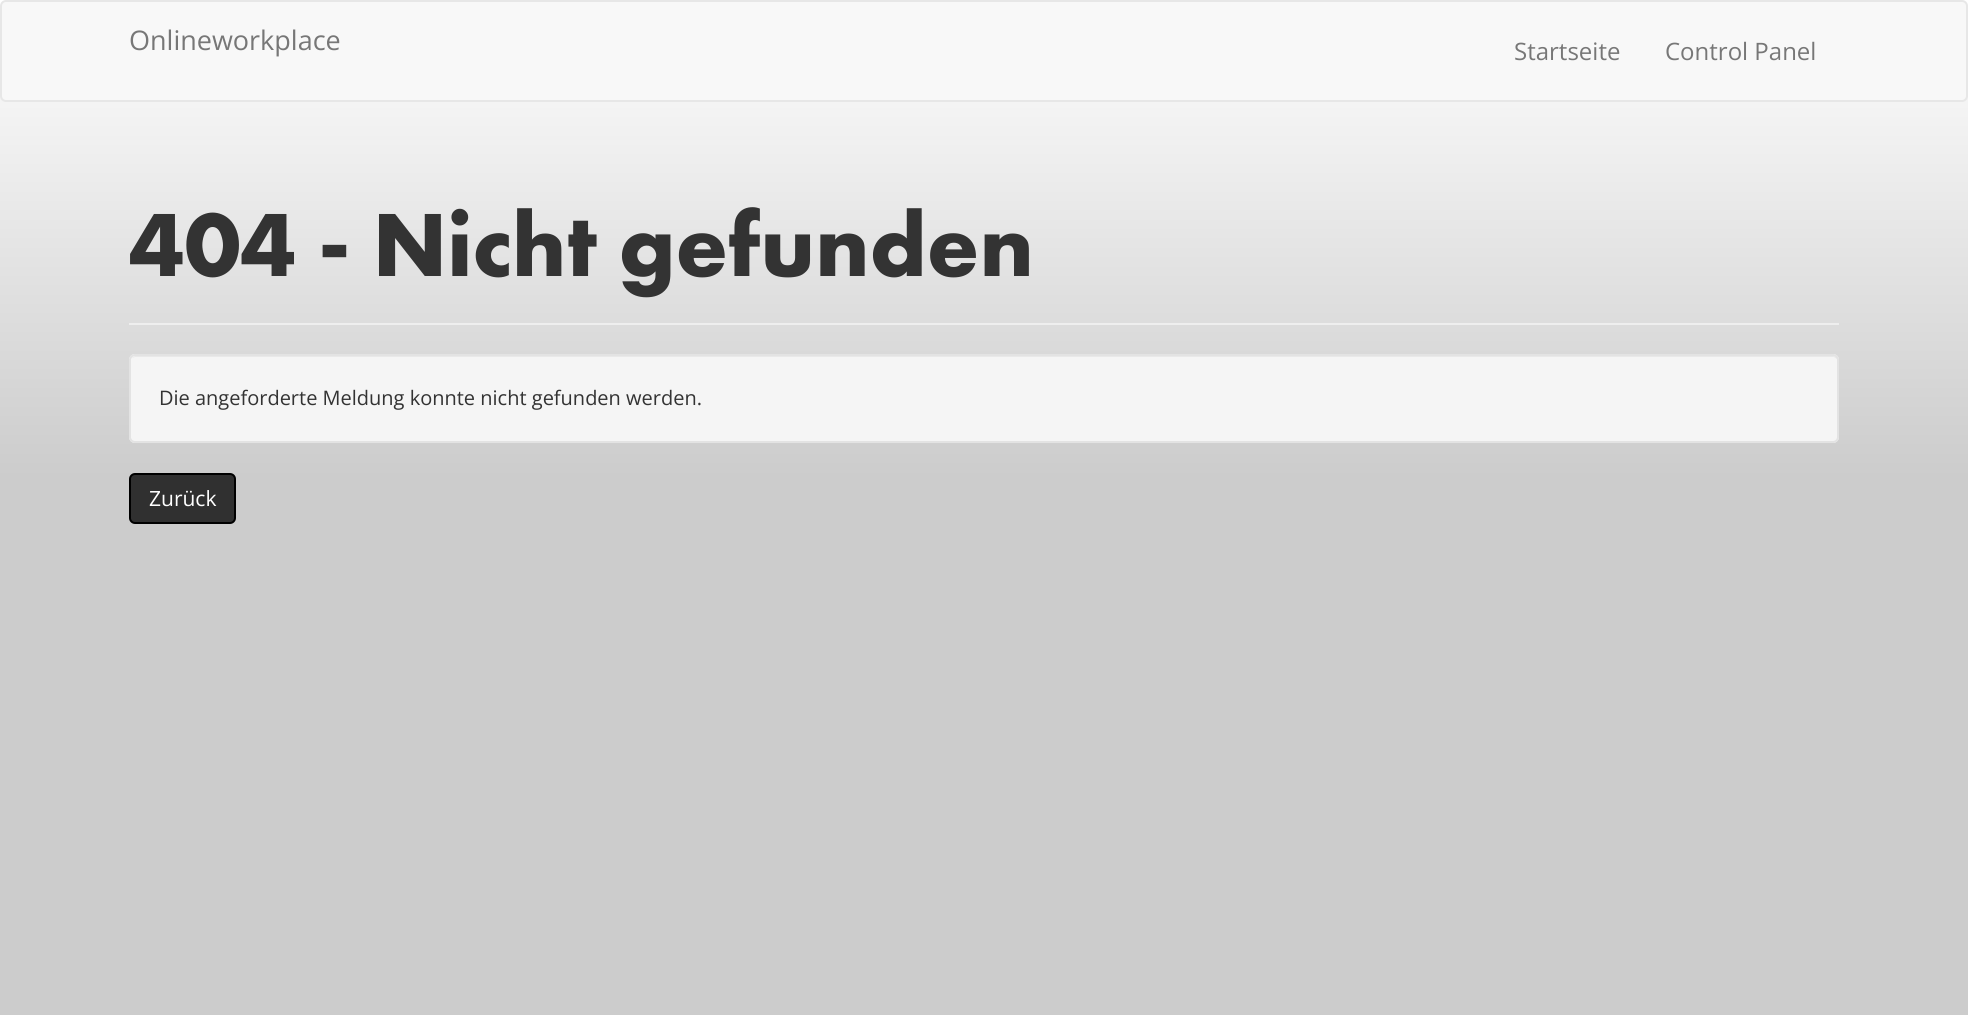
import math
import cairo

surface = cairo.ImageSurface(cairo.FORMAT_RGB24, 1968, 1015)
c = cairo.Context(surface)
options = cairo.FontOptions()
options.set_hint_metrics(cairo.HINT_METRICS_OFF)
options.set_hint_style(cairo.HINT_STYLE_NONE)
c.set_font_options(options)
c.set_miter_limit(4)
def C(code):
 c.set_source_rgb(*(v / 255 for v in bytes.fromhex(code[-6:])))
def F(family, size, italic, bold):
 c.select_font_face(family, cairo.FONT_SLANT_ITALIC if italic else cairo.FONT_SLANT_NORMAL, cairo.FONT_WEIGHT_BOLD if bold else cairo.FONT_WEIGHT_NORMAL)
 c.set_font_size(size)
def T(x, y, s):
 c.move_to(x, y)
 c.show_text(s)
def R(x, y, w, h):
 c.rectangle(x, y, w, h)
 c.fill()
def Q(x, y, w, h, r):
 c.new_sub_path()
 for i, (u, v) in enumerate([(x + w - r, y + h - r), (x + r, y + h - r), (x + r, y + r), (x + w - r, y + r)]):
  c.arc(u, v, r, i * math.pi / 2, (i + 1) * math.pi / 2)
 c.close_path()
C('ffffff')
c.paint()
gradient = cairo.LinearGradient(984,0,984,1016)
gradient.add_color_stop_rgba(0,1,1,1,1)
gradient.add_color_stop_rgba(.46,0.804,0.804,0.804,1)
gradient.add_color_stop_rgba(.47,0.8,0.8,0.8,1)
gradient.add_color_stop_rgba(.95,0.8,0.8,0.8,1)
c.set_source(gradient)
R(0,23,1968,992)
C('f8f8f8')
Q(1,1,1966,100,5)
c.fill_preserve()
C('e7e7e7')
c.stroke()
F('Open Sans',27,0,0)
C('777777')
T(129,50,'Onlineworkplace')
F('Open Sans',24,0,0)
T(1514,60,'Startseite')
T(1665,60,'Control Panel')
C('eeeeee')
R(129,323,1710,2)
F('Futura PT',93,0,1)
C('333333')
T(129,276,'404 - Nicht gefunden')
C('f5f5f5')
Q(129,354,1710,89,6)
c.fill()
C('e9e9e9')
c.new_path()
c.move_to(135,357)
c.line_to(1833,357)
c.curve_to(1835,357,1838,359,1838,362)
c.line_to(1838,361)
c.curve_to(1838,358,1836,356,1833,356)
c.line_to(136,356)
c.curve_to(134,356,133,357,132,358)
c.close_path()
c.fill()
Q(130,355,1708,87,5)
C('e3e3e3')
c.stroke()
F('Open Sans',20,0,0)
C('333333')
T(159,405,'Die angeforderte Meldung konnte nicht gefunden werden.')
C('303030')
Q(130,474,105,49,5)
c.fill_preserve()
C('000000')
c.stroke()
F('Open Sans',21,0,0)
C('ffffff')
T(149,506,'Zurück')
surface.write_to_png('o.png')
